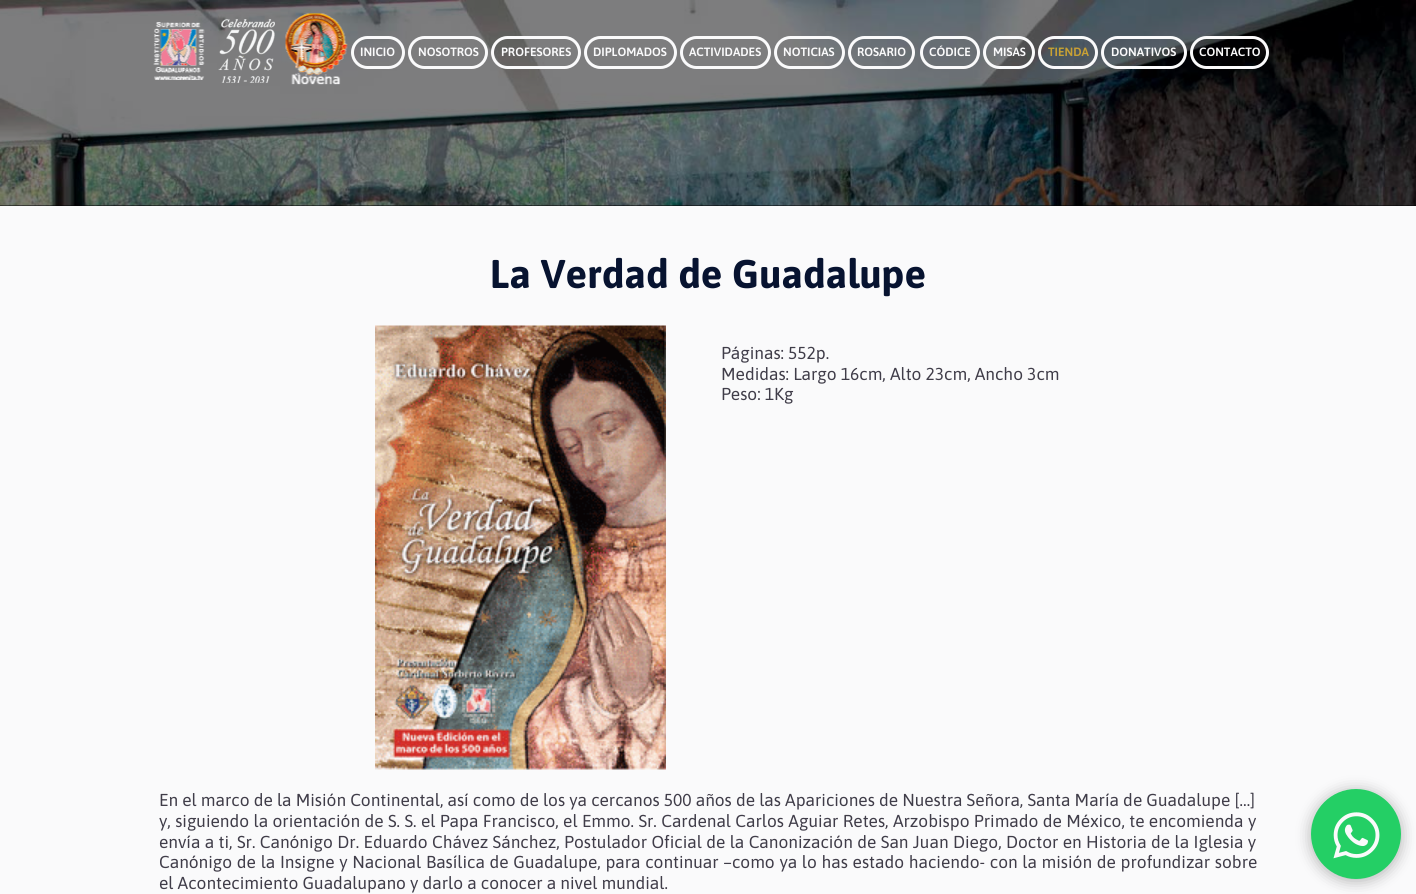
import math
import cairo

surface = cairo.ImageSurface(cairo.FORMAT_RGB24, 1416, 894)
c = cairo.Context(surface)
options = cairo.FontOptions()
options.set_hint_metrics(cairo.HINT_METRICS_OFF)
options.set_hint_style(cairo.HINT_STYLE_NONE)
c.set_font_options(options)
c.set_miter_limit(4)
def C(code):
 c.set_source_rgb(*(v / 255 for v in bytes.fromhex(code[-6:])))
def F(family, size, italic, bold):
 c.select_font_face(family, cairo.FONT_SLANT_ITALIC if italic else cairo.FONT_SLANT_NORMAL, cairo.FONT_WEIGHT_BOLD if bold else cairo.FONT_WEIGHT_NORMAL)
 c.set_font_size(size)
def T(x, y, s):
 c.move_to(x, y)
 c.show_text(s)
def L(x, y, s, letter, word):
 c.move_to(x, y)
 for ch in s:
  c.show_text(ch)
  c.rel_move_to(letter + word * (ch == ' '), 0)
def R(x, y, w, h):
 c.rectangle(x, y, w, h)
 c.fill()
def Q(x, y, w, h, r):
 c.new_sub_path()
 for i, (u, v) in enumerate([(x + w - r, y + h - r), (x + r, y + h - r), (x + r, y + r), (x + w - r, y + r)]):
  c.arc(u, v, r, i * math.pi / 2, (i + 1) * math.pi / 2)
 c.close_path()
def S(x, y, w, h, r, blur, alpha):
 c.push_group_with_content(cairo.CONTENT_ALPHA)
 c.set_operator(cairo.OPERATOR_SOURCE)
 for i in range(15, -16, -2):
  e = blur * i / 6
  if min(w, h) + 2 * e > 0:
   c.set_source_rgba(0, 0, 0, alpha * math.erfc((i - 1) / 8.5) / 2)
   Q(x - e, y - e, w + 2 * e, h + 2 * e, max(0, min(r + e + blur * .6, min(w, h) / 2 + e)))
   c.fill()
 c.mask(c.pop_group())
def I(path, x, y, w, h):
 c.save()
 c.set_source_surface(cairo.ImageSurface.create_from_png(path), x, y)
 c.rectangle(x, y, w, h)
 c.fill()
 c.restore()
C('fafafb')
c.paint()
C('000001')
R(0,0,1416,206)
I('4.png',0,0,1416,206)
I('1.png',153,22,52,58)
I('2.png',218,19,57,64)
I('3.png',285,13,63,72)
Q(352.5,37.5,51,30,15)
C('fafafb')
c.set_line_width(3)
c.stroke()
F('Asap SemiBold',12,0,0)
T(360,56,'INICIO')
Q(409.5,37.5,77,30,15)
c.stroke()
T(418,56,'NOSOTROS')
Q(492.5,37.5,87,30,15)
c.stroke()
T(501,56,'PROFESORES')
Q(585.5,37.5,90,30,15)
c.stroke()
T(593,56,'DIPLOMADOS')
Q(681.5,37.5,88,30,15)
c.stroke()
T(689,56,'ACTIVIDADES')
Q(775.5,37.5,68,30,15)
c.stroke()
T(783,56,'NOTICIAS')
Q(849.5,37.5,64,30,15)
c.stroke()
T(857,56,'ROSARIO')
Q(921.5,37.5,57,30,15)
c.stroke()
T(929,56,'CÓDICE')
Q(984.5,37.5,49,30,15)
c.stroke()
T(993,56,'MISAS')
Q(1039.5,37.5,57,30,15)
c.stroke()
C('c9a134')
T(1048,56,'TIENDA')
Q(1102.5,37.5,83,30,15)
C('fafafb')
c.stroke()
T(1111,56,'DONATIVOS')
Q(1191.5,37.5,76,30,15)
c.stroke()
T(1199,56,'CONTACTO')
F('Asap',40,0,1)
C('071330')
T(490,288,'La Verdad de Guadalupe')
I('5.png',375,325,291,445)
F('Asap',17.3,0,0)
C('403d49')
T(721,359,'Páginas: 552p.')
T(721,380,'Medidas: Largo 16cm, Alto 23cm, Ancho 3cm')
T(721,400,'Peso: 1Kg')
T(159,806,'En el marco de la Misión Continental, así como de los ya cercanos 500 años de las Apariciones de Nuestra Señora, Santa María de Guadalupe […]')
L(159,827,'y, siguiendo la orientación de S. S. el Papa Francisco, el Emmo. Sr. Cardenal Carlos Aguiar Retes, Arzobispo Primado de México, te encomienda y',0,.25)
L(159,848,'envía a ti, Sr. Canónigo Dr. Eduardo Chávez Sánchez, Postulador Oficial de la Canonización de San Juan Diego, Doctor en Historia de la Iglesia y',0,.25)
L(159,868,'Canónigo de la Insigne y Nacional Basílica de Guadalupe, para continuar –como ya lo has estado haciendo- con la misión de profundizar sobre',0,.55)
T(159,889,'el Acontecimiento Guadalupano y darlo a conocer a nivel mundial.')
C('000001')
S(1311,791,90,90,45,7.5,.3)
C('24cf65')
c.arc(1356,834,45,0,2 * math.pi)
c.fill()
I('6.png',1333,812,47,47)
surface.write_to_png('o.png')
